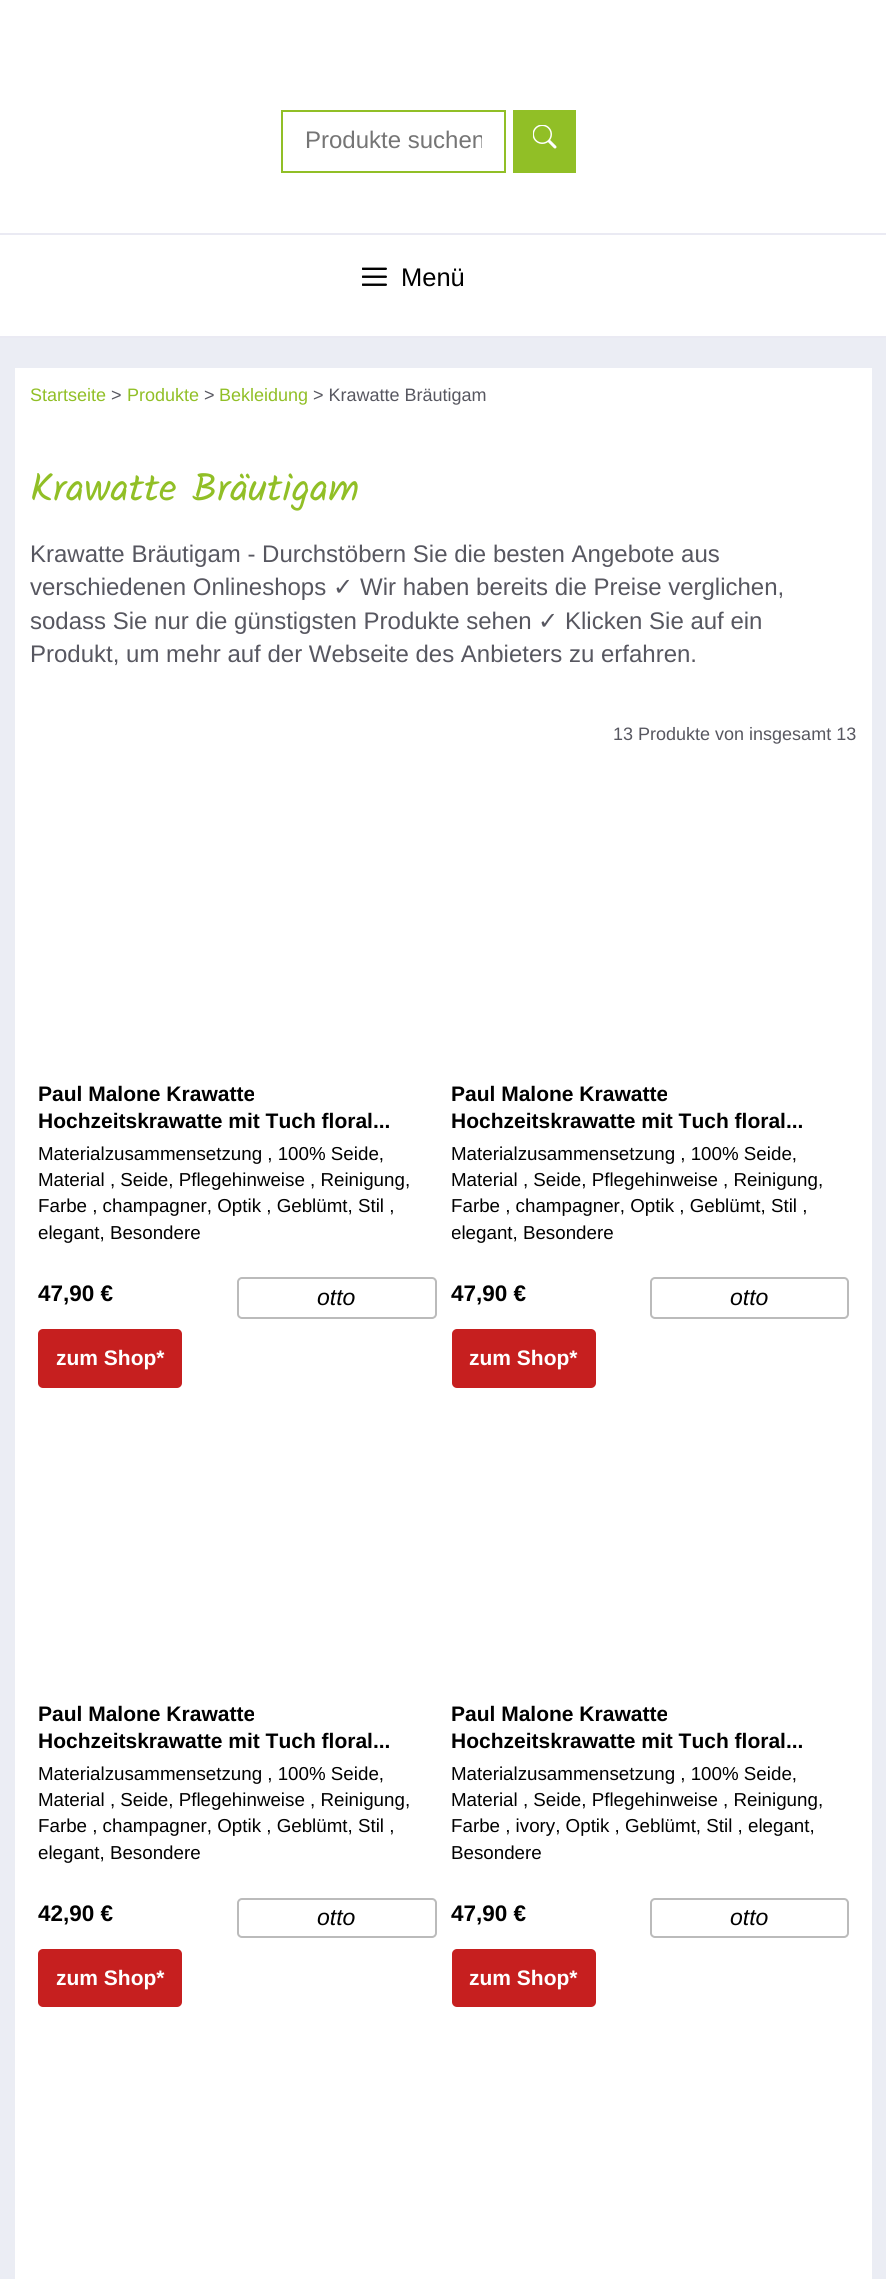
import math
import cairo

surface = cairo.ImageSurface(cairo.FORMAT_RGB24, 886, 2279)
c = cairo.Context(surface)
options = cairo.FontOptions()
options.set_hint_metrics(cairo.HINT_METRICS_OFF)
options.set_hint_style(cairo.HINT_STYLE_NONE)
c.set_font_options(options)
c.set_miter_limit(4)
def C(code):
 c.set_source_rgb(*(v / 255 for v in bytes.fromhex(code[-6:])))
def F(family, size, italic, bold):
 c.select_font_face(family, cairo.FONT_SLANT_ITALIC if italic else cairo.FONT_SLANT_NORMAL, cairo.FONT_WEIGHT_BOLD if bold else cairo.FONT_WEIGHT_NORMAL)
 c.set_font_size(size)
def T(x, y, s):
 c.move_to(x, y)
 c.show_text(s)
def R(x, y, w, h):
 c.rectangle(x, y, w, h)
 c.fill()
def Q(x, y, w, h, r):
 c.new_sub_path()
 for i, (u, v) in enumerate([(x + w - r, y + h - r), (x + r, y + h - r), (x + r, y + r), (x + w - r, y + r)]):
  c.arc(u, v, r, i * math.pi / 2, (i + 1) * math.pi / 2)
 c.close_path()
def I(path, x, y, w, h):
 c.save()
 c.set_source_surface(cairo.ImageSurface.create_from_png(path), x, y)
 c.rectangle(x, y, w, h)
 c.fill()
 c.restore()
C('ffffff')
c.paint()
c.rectangle(282,111,223,61)
C('91bf26')
c.stroke()
c.save()
c.rectangle(305,128,177,27)
c.clip()
F('Liberation Sans',24,0,0)
C('757575')
T(305,148,'Produkte suchen')
c.restore()
R(513,110,63,63)
I('1.png',533,125,24,24)
C('eaeaf3')
R(0,233,886,2)
R(0,336,886,2)
I('2.png',362,267,25,19)
F('Liberation Sans',25.5,0,0)
C('000000')
T(401,286,'Menü')
C('ebedf4')
R(0,338,886,1941)
C('ffffff')
R(15,368,857,1911)
F('Liberation Sans',18,0,0)
C('91bf26')
T(30,401,'Startseite')
C('575760')
T(111,401,'>')
C('91bf26')
T(127,401,'Produkte')
C('575760')
T(204,401,'>')
C('91bf26')
T(219,401,'Bekleidung')
C('575760')
T(313,401,'> Krawatte Bräutigam')
F('Kalam',39,0,0)
C('91bf26')
T(30,501,'Krawatte Bräutigam')
F('Liberation Sans',24,0,0)
C('575760')
T(30,562,'Krawatte Bräutigam - Durchstöbern Sie die besten Angebote aus')
T(30,595,'verschiedenen Onlineshops')
F('DejaVu Sans',24,0,0)
T(333,595,'✓')
F('Liberation Sans',24,0,0)
T(360,595,'Wir haben bereits die Preise verglichen,')
T(30,629,'sodass Sie nur die günstigsten Produkte sehen')
F('DejaVu Sans',24,0,0)
T(538,629,'✓')
F('Liberation Sans',24,0,0)
T(565,629,'Klicken Sie auf ein')
T(30,662,'Produkt, um mehr auf der Webseite des Anbieters zu erfahren.')
F('Liberation Sans',18,0,0)
T(613,740,'13 Produkte von insgesamt 13')
F('Liberation Sans',21,0,1)
C('000000')
T(38,1101,'Paul Malone Krawatte')
T(38,1128,'Hochzeitskrawatte mit Tuch floral...')
F('Liberation Sans',18.75,0,0)
T(38,1160,'Materialzusammensetzung , 100% Seide,')
T(38,1186,'Material , Seide, Pflegehinweise , Reinigung,')
T(38,1212,'Farbe , champagner, Optik , Geblümt, Stil ,')
T(38,1239,'elegant, Besondere')
F('Liberation Sans',22.5,0,1)
T(38,1301,'47,90 €')
Q(238,1278,198,40,4)
C('bbbbbb')
c.stroke()
F('Liberation Sans',23,1,0)
C('000000')
T(317,1305,'otto')
C('c61f1f')
Q(38,1329,144,59,5)
c.fill()
F('Liberation Sans',21,0,1)
C('ffffff')
T(56,1365,'zum Shop*')
C('000000')
T(451,1101,'Paul Malone Krawatte')
T(451,1128,'Hochzeitskrawatte mit Tuch floral...')
F('Liberation Sans',18.75,0,0)
T(451,1160,'Materialzusammensetzung , 100% Seide,')
T(451,1186,'Material , Seide, Pflegehinweise , Reinigung,')
T(451,1212,'Farbe , champagner, Optik , Geblümt, Stil ,')
c.save()
c.rectangle(452,1142,397,105)
c.clip()
T(451,1239,'elegant, Besondere')
c.restore()
F('Liberation Sans',22.5,0,1)
T(451,1301,'47,90 €')
Q(651,1278,197,40,4)
C('bbbbbb')
c.stroke()
F('Liberation Sans',23,1,0)
C('000000')
T(730,1305,'otto')
C('c61f1f')
Q(452,1329,144,59,5)
c.fill()
F('Liberation Sans',21,0,1)
C('ffffff')
T(469,1365,'zum Shop*')
C('000000')
T(38,1721,'Paul Malone Krawatte')
T(38,1748,'Hochzeitskrawatte mit Tuch floral...')
F('Liberation Sans',18.75,0,0)
T(38,1780,'Materialzusammensetzung , 100% Seide,')
T(38,1806,'Material , Seide, Pflegehinweise , Reinigung,')
T(38,1832,'Farbe , champagner, Optik , Geblümt, Stil ,')
T(38,1859,'elegant, Besondere')
F('Liberation Sans',22.5,0,1)
T(38,1921,'42,90 €')
Q(238,1899,198,38,4)
C('bbbbbb')
c.stroke()
F('Liberation Sans',23,1,0)
C('000000')
T(317,1925,'otto')
C('c61f1f')
Q(38,1949,144,58,5)
c.fill()
F('Liberation Sans',21,0,1)
C('ffffff')
T(56,1985,'zum Shop*')
C('000000')
T(451,1721,'Paul Malone Krawatte')
T(451,1748,'Hochzeitskrawatte mit Tuch floral...')
F('Liberation Sans',18.75,0,0)
T(451,1780,'Materialzusammensetzung , 100% Seide,')
T(451,1806,'Material , Seide, Pflegehinweise , Reinigung,')
T(451,1832,'Farbe , ivory, Optik , Geblümt, Stil , elegant,')
T(451,1859,'Besondere')
F('Liberation Sans',22.5,0,1)
T(451,1921,'47,90 €')
Q(651,1899,197,38,4)
C('bbbbbb')
c.stroke()
F('Liberation Sans',23,1,0)
C('000000')
T(730,1925,'otto')
C('c61f1f')
Q(452,1949,144,58,5)
c.fill()
F('Liberation Sans',21,0,1)
C('ffffff')
T(469,1985,'zum Shop*')
surface.write_to_png('o.png')
